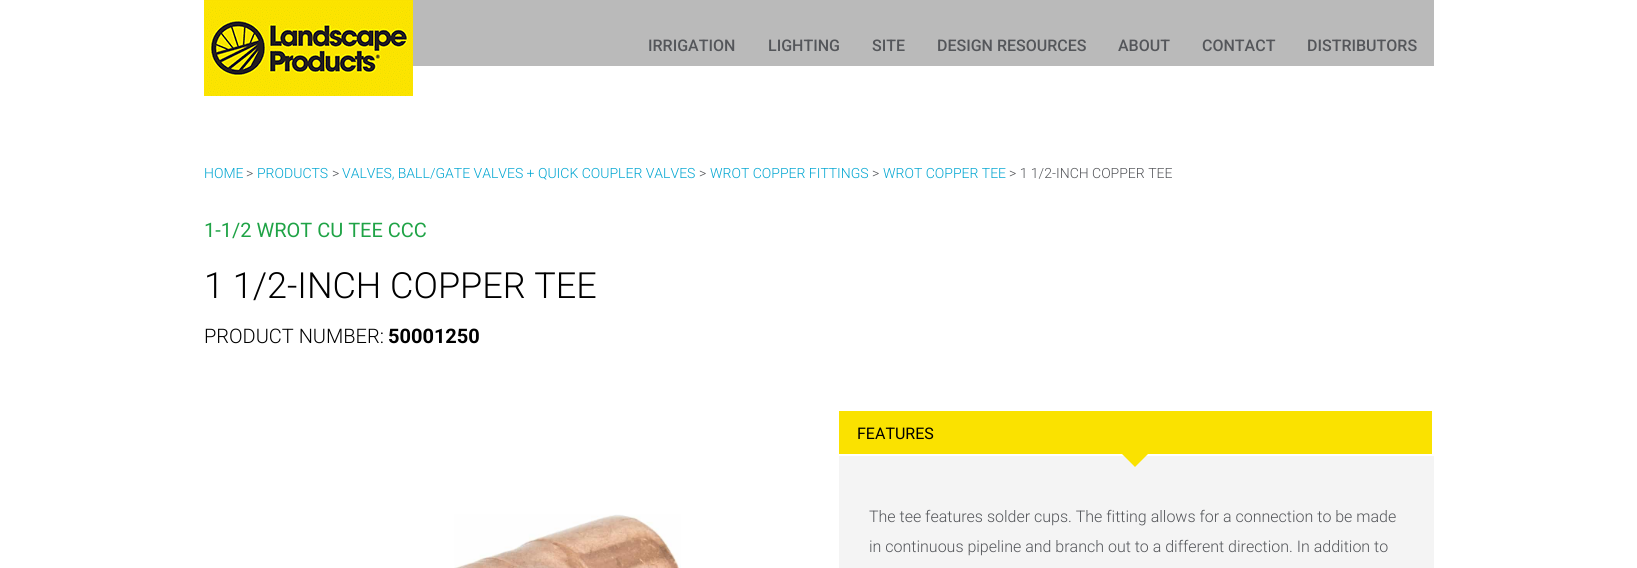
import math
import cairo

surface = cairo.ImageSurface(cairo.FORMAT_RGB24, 1637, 568)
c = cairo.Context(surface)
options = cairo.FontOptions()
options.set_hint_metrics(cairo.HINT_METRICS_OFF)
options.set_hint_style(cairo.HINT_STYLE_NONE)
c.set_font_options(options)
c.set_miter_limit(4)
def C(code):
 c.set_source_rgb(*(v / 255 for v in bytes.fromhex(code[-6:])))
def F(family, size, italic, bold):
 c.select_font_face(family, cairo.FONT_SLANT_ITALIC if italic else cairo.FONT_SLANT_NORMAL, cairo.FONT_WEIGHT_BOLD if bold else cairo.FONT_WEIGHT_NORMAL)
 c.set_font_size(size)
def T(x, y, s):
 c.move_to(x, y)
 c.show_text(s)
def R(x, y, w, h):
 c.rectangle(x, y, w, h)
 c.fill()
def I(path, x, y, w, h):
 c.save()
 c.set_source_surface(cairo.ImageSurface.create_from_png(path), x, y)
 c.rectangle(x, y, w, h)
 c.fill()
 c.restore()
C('ffffff')
c.paint()
C('bababa')
R(413,0,1021,66)
I('1.png',204,0,209,96)
F('Roboto Medium',16,0,0)
C('54565a')
T(648,51,'IRRIGATION')
T(768,51,'LIGHTING')
T(872,51,'SITE')
T(937,51,'DESIGN RESOURCES')
T(1118,51,'ABOUT')
T(1202,51,'CONTACT')
T(1307,51,'DISTRIBUTORS')
F('Roboto Light',14,0,0)
C('00a5d1')
T(204,178,'HOME')
C('54565a')
T(246,178,'>')
C('00a5d1')
T(257,178,'PRODUCTS')
C('54565a')
T(332,178,'>')
C('00a5d1')
T(342,178,'VALVES, BALL/GATE VALVES + QUICK COUPLER VALVES')
C('54565a')
T(699,178,'>')
C('00a5d1')
T(710,178,'WROT COPPER FITTINGS')
C('54565a')
T(872,178,'>')
C('00a5d1')
T(883,178,'WROT COPPER TEE')
C('54565a')
T(1009,178,'> 1 1/2-INCH COPPER TEE')
F('Roboto',20,0,0)
C('1fa346')
T(204,237,'1-1/2 WROT CU TEE CCC')
F('Roboto Light',36,0,0)
C('000000')
T(204,298,'1 1/2-INCH COPPER TEE')
F('Roboto Light',20,0,0)
T(204,343,'PRODUCT NUMBER:')
F('Roboto',20,0,1)
T(388,343,'50001250')
I('2.png',454,514,227,54)
C('fae200')
R(839,411,593,43)
F('Roboto',16,0,0)
C('000000')
T(857,439,'FEATURES')
C('f4f4f4')
R(839,456,595,112)
C('fae200')
c.new_path()
c.move_to(1120,452)
c.line_to(1150,452)
c.line_to(1135,467)
c.close_path()
c.fill()
F('Roboto Light',16,0,0)
C('54565a')
T(869,522,'The tee features solder cups. The fitting allows for a connection to be made')
T(869,552,'in continuous pipeline and branch out to a different direction. In addition to')
surface.write_to_png('o.png')
